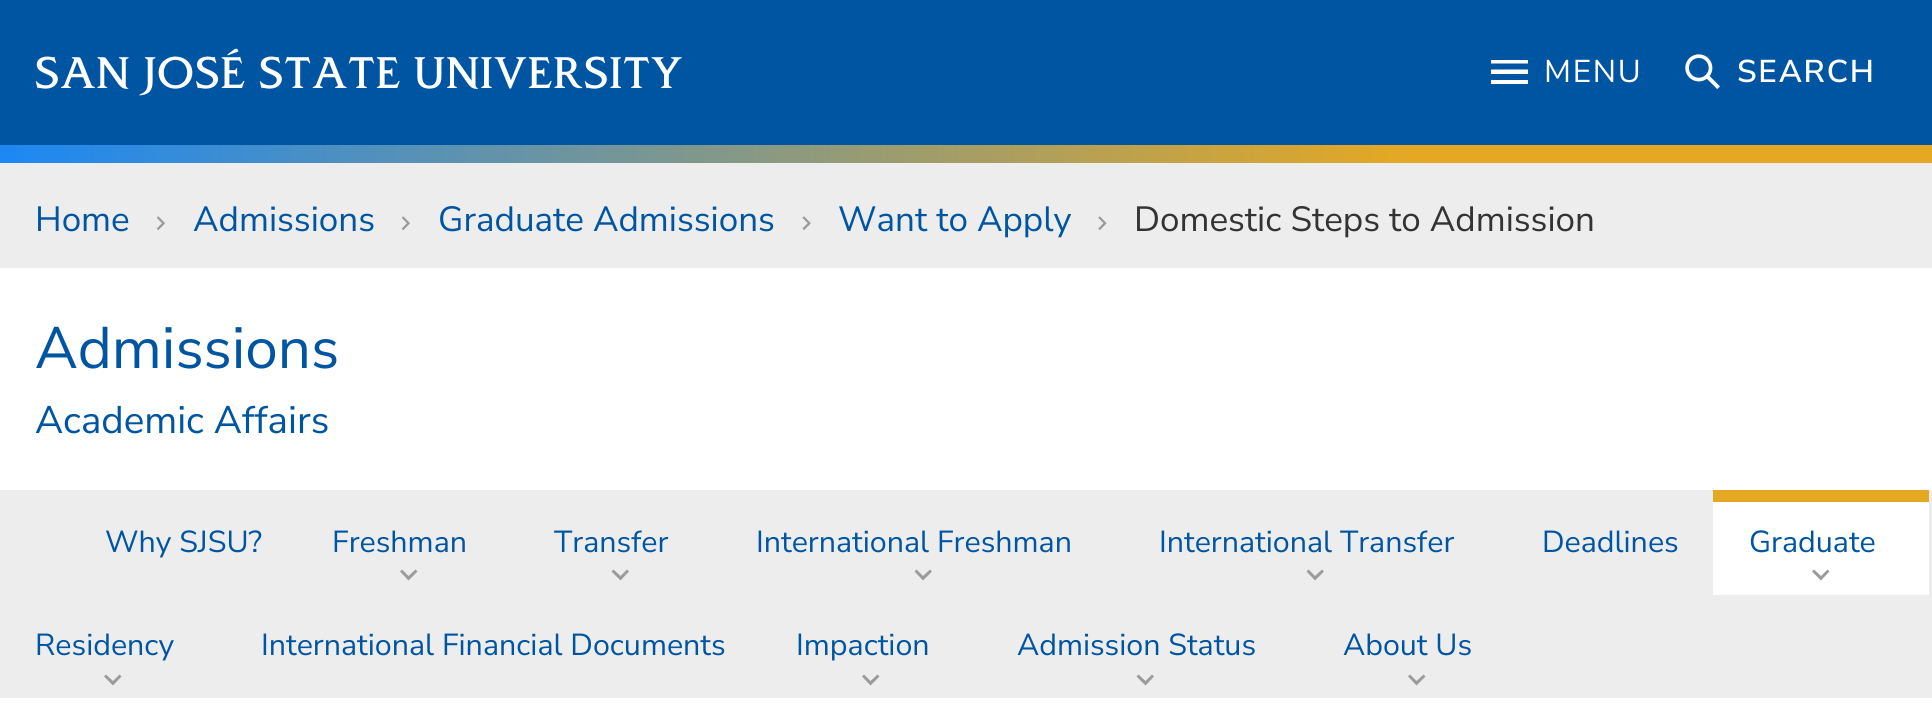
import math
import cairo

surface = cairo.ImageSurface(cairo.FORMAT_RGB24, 1932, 722)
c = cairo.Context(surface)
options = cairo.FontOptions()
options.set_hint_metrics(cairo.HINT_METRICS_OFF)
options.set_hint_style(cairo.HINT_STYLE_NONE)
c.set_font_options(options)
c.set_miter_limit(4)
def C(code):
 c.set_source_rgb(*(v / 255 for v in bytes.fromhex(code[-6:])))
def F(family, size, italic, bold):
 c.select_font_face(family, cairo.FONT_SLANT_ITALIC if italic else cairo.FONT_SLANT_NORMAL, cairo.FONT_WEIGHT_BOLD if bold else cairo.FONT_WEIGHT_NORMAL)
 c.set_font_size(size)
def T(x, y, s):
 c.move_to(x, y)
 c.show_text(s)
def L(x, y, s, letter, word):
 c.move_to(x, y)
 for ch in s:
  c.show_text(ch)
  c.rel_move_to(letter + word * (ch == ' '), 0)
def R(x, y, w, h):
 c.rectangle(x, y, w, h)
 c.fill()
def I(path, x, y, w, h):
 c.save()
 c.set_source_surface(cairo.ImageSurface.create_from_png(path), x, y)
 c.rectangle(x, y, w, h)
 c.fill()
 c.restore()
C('ffffff')
c.paint()
C('0055a2')
R(0,0,1932,145)
F('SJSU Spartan',42,0,0)
C('ffffff')
L(35,88,'SAN JOSÉ STATE UNIVERSITY',1.75,0)
F('Nunito Sans',31.5,0,0)
L(1544,82,'MENU',1.75,0)
c.save()
c.rectangle(1491,60,37,24)
c.clip()
c.set_fill_rule(cairo.FILL_RULE_EVEN_ODD)
c.new_path()
c.move_to(1491,84)
c.line_to(1528,84)
c.line_to(1528,80)
c.line_to(1491,80)
c.close_path()
c.move_to(1491,74)
c.line_to(1528,74)
c.line_to(1528,69.5)
c.line_to(1491,69.5)
c.close_path()
c.move_to(1491,59.5)
c.line_to(1491,63.5)
c.line_to(1528,63.5)
c.line_to(1528,59.5)
c.close_path()
c.fill()
c.restore()
I('1.png',1685,54,35,35)
F('Nunito Sans SemiBold',31.5,0,0)
L(1737,82,'SEARCH',1.75,0)
C('ededed')
R(0,163,1932,105)
gradient = cairo.LinearGradient(0,154,1932,154)
gradient.add_color_stop_rgba(0,0.11,0.533,0.957,1)
gradient.add_color_stop_rgba(.73,0.898,0.659,0.137,1)
c.set_source(gradient)
R(0,145,1932,18)
F('Nunito Sans',35,0,0)
C('0055a2')
T(35,231,'Home')
I('2.png',156,216,9,15)
T(193,231,'Admissions')
I('2.png',401,216,9,15)
T(438,231,'Graduate Admissions')
I('3.png',802,216,9,15)
T(838,231,'Want to Apply')
I('4.png',1098,216,9,15)
C('333333')
T(1134,231,'Domestic Steps to Admission')
F('Nunito Sans',58.5,0,0)
C('0055a2')
T(35,368,'Admissions')
F('Nunito Sans',38.5,0,0)
T(35,433,'Academic Affairs')
C('ededed')
R(0,490,1932,208)
F('Nunito Sans',30.4,0,0)
C('0055a2')
T(105,552,'Why SJSU?')
C('9b9b9b')
c.new_path()
c.move_to(415.5,569.5)
c.line_to(417.5,571.5)
c.line_to(408.5,580.5)
c.line_to(400,571.5)
c.line_to(402,569.5)
c.line_to(408.5,576)
c.close_path()
c.fill()
C('0055a2')
T(332,552,'Freshman')
C('9b9b9b')
c.new_path()
c.move_to(627,569.5)
c.line_to(629,571.5)
c.line_to(620.5,580.5)
c.line_to(611.5,571.5)
c.line_to(613.5,569.5)
c.line_to(620.5,576)
c.close_path()
c.fill()
C('0055a2')
T(554,552,'Transfer')
C('9b9b9b')
c.new_path()
c.move_to(930,569.5)
c.line_to(932,571.5)
c.line_to(923,580.5)
c.line_to(914.5,571.5)
c.line_to(916.5,569.5)
c.line_to(923,576)
c.close_path()
c.fill()
C('0055a2')
T(756,552,'International Freshman')
C('9b9b9b')
c.new_path()
c.move_to(1322,569.5)
c.line_to(1324,571.5)
c.line_to(1315,580.5)
c.line_to(1306.5,571.5)
c.line_to(1308.5,569.5)
c.line_to(1315,576)
c.close_path()
c.fill()
C('0055a2')
T(1159,552,'International Transfer')
T(1542,552,'Deadlines')
C('ffffff')
R(1713,502,216,93)
C('9b9b9b')
c.new_path()
c.move_to(1827.5,569.5)
c.line_to(1829.5,571.5)
c.line_to(1821,580.5)
c.line_to(1812,571.5)
c.line_to(1814,569.5)
c.line_to(1821,576)
c.close_path()
c.fill()
C('e5a823')
R(1713,490,216,12)
C('0055a2')
T(1749,552,'Graduate')
C('9b9b9b')
c.new_path()
c.move_to(119.5,674.5)
c.line_to(121.5,676.5)
c.line_to(113,685.5)
c.line_to(104,676.5)
c.line_to(106,674.5)
c.line_to(113,681)
c.close_path()
c.fill()
C('0055a2')
T(35,655,'Residency')
T(261,655,'International Financial Documents')
C('9b9b9b')
c.new_path()
c.move_to(877.5,674.5)
c.line_to(879.5,676.5)
c.line_to(870.5,685.5)
c.line_to(862,676.5)
c.line_to(864,674.5)
c.line_to(870.5,681)
c.close_path()
c.fill()
C('0055a2')
T(796,655,'Impaction')
C('9b9b9b')
c.new_path()
c.move_to(1152,674.5)
c.line_to(1154,676.5)
c.line_to(1145.5,685.5)
c.line_to(1136.5,676.5)
c.line_to(1138.5,674.5)
c.line_to(1145.5,681)
c.close_path()
c.fill()
C('0055a2')
T(1017,655,'Admission Status')
C('9b9b9b')
c.new_path()
c.move_to(1423.5,674.5)
c.line_to(1425.5,676.5)
c.line_to(1416.5,685.5)
c.line_to(1408,676.5)
c.line_to(1410,674.5)
c.line_to(1416.5,681)
c.close_path()
c.fill()
C('0055a2')
T(1343,655,'About Us')
surface.write_to_png('o.png')
